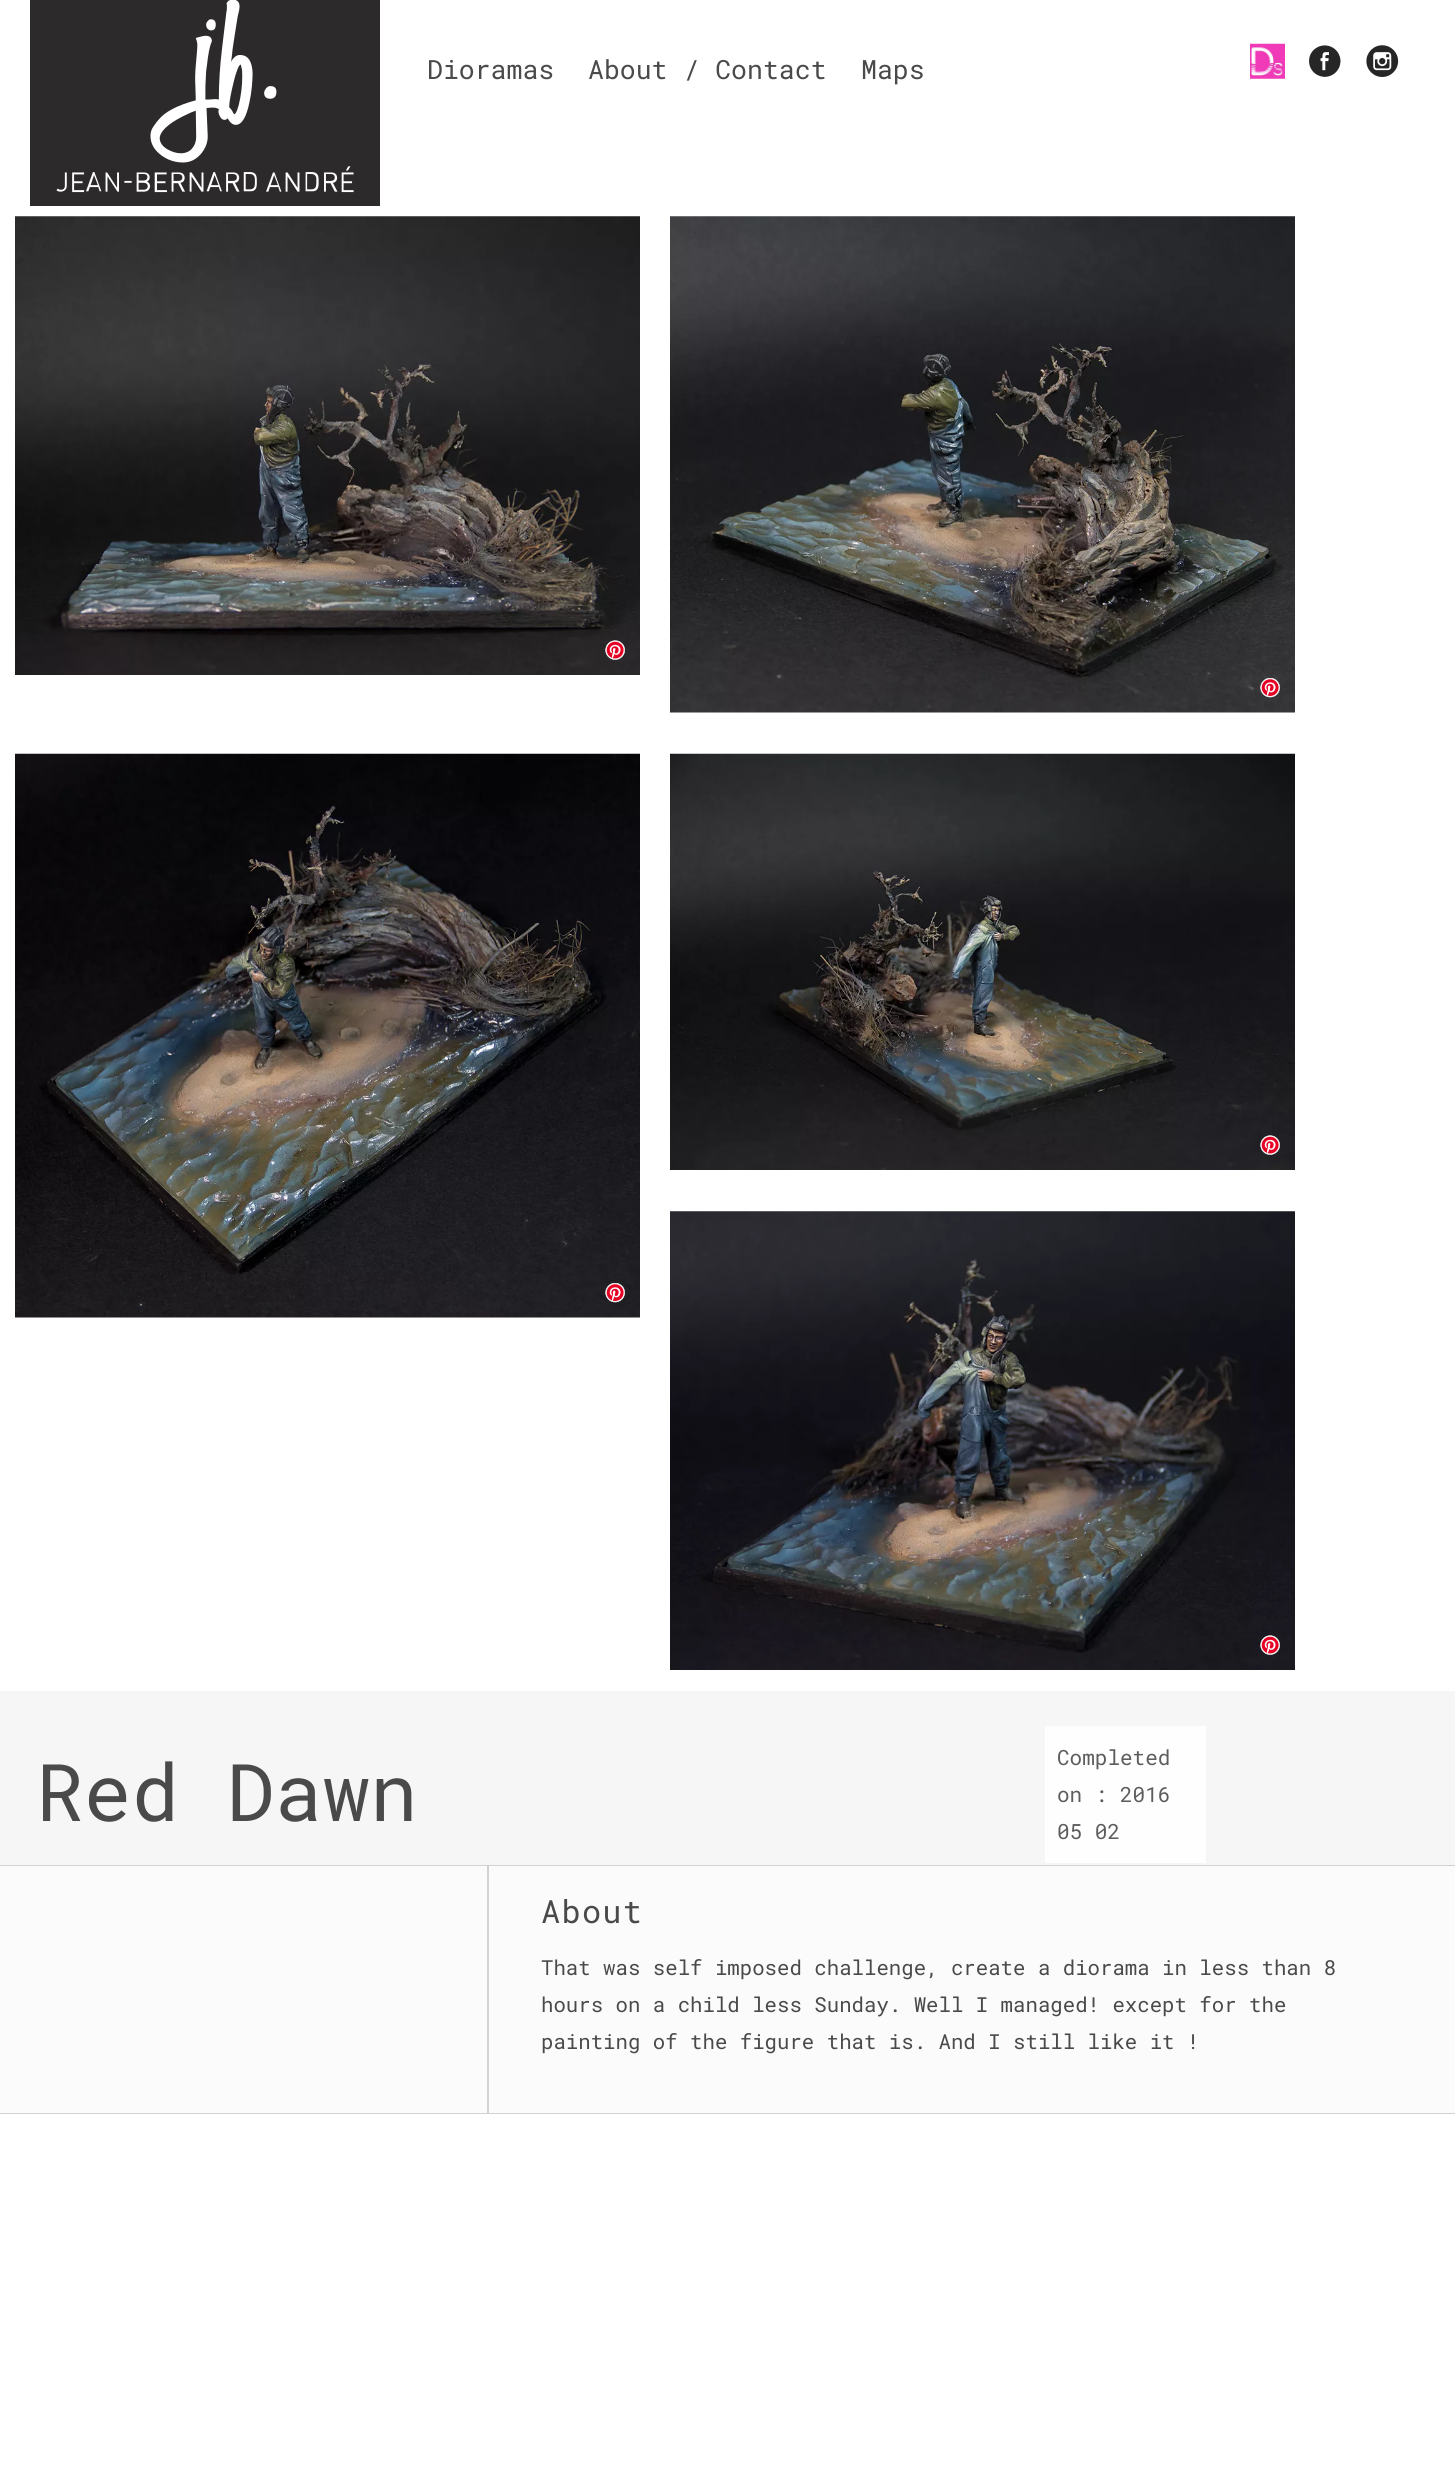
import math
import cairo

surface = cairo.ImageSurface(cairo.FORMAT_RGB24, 1455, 2492)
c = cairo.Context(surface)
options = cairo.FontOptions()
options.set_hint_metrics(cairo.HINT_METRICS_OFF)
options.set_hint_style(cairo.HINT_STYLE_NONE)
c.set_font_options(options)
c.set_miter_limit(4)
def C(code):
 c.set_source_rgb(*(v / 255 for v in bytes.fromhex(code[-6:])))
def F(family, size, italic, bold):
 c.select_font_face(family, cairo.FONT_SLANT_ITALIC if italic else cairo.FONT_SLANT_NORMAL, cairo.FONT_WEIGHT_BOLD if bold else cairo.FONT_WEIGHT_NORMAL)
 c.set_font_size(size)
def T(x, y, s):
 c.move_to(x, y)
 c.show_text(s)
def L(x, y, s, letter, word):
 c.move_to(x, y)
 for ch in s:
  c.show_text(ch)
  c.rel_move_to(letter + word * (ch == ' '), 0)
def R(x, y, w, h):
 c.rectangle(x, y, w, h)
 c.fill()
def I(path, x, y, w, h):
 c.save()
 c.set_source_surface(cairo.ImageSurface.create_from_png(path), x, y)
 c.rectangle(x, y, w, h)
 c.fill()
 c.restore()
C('ffffff')
c.paint()
I('1.png',30,0,350,206)
F('Roboto Mono',26.5,0,0)
C('4a4a4a')
T(427,79,'Dioramas')
T(588,79,'About / Contact')
T(861,79,'Maps')
I('2.png',1250,43,35,36)
I('3.png',1309,45,32,32)
I('4.png',1366,45,33,32)
I('5.png',15,216,625,459)
I('6.png',605,640,20,20)
I('7.png',670,216,625,497)
I('8.png',1260,678,20,20)
I('9.png',15,753,625,565)
I('10.png',605,1283,20,20)
I('11.png',670,753,625,417)
I('12.png',1260,1135,20,20)
I('13.png',670,1211,625,459)
I('14.png',1260,1635,20,20)
C('f6f6f6')
R(0,1691,1455,174)
F('Roboto Mono',79.5,0,0)
C('4a4a4a')
T(36,1821,'Red Dawn')
C('fefefe')
R(1045,1726,161,137)
F('Roboto Mono',21,0,0)
C('5d5d5d')
T(1057,1765,'Completed')
T(1057,1802,'on : 2016')
T(1057,1839,'05 02')
C('fbfbfb')
R(0,1866,1455,247)
c.rectangle(-.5,1865.5,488,248)
C('d2d2d2')
c.set_line_width(1)
c.stroke()
c.rectangle(488.5,1865.5,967,248)
c.stroke()
F('Roboto Mono',32,0,0)
C('4a4a4a')
L(541,1923,'About',1.25,0)
F('Roboto Mono',20.7,0,0)
T(541,1975,'That was self imposed challenge, create a diorama in less than 8')
T(541,2012,'hours on a child less Sunday. Well I managed! except for the')
T(541,2049,'painting of the figure that is. And I still like it !')
surface.write_to_png('o.png')
